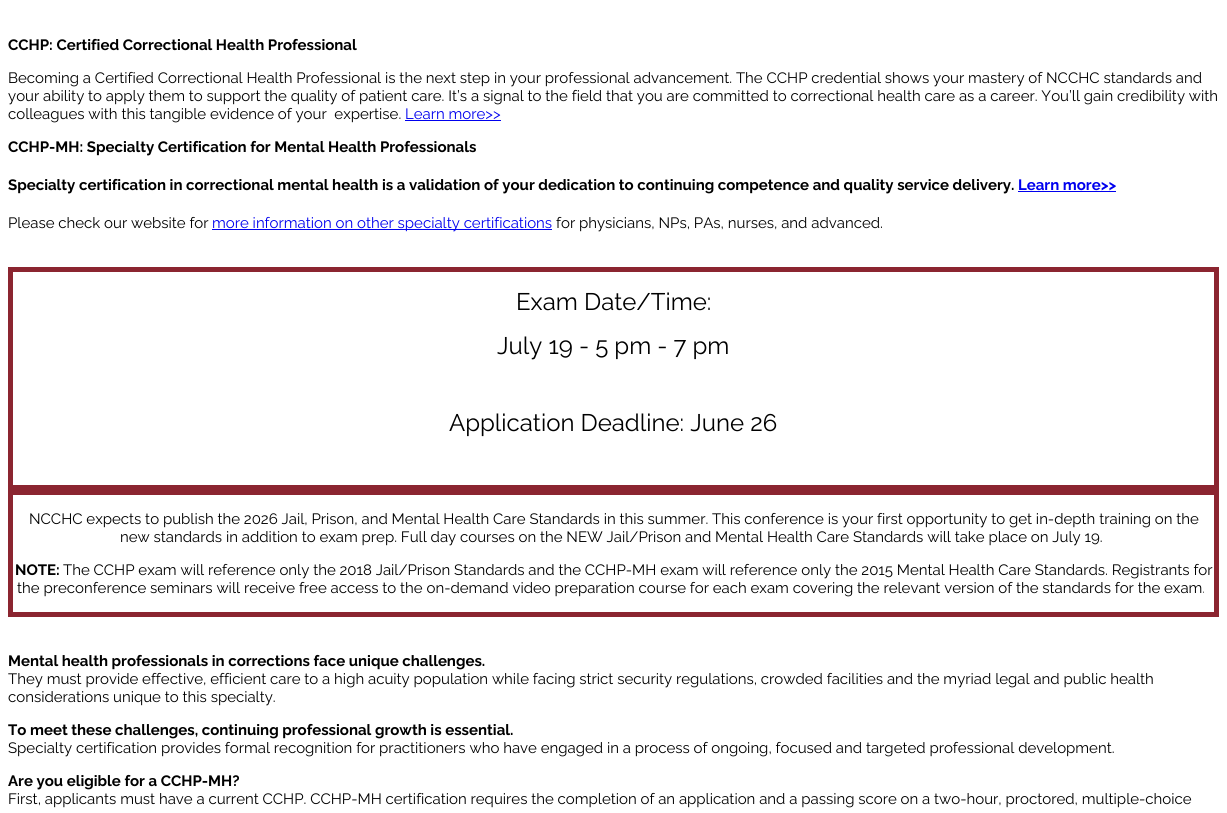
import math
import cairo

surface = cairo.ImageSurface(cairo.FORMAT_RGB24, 1227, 813)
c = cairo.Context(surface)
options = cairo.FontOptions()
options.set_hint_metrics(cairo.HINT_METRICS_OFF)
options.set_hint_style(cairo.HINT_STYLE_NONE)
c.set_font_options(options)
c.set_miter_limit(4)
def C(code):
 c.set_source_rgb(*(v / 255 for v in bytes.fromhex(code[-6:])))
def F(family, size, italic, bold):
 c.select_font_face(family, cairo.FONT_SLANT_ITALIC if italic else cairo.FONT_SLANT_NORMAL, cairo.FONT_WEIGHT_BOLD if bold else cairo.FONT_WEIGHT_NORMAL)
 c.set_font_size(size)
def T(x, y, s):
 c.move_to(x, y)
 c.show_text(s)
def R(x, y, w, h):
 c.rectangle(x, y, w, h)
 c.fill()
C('ffffff')
c.paint()
F('Raleway',15,0,1)
C('000000')
T(8,50,'CCHP: Certified Correctional Health Professional')
F('Raleway',15,0,0)
T(8,83,'Becoming a Certified Correctional Health Professional is the next step in your professional advancement. The CCHP credential shows your mastery of NCCHC standards and')
T(8,101,'your ability to apply them to support the quality of patient care. It’s a signal to the field that you are committed to correctional health care as a career. You’ll gain credibility with')
T(8,119,'colleagues with this tangible evidence of your  expertise.')
C('0000ee')
T(405,119,'Learn more>>')
R(405,120,96,1)
F('Raleway',15,0,1)
C('000000')
T(8,152,'CCHP-MH: Specialty Certification for Mental Health Professionals')
T(8,190,'Specialty certification in correctional mental health is a validation of your dedication to continuing competence and quality service delivery.')
C('0000ee')
T(1018,190,'Learn more>>')
R(1018,191,98,1)
F('Raleway',15,0,0)
C('000000')
T(8,228,'Please check our website for')
C('0000ee')
R(212,229,340,1)
T(212,228,'more information on other specialty certifications')
C('000000')
T(556,228,'for physicians, NPs, PAs, nurses, and advanced.')
c.rectangle(10.5,269.5,1206,218)
C('8b2530')
c.set_line_width(5)
c.stroke()
F('Raleway',24,0,0)
C('000000')
T(516,310,'Exam Date/Time:')
T(497,354,'July 19 - 5 pm - 7 pm')
T(449,431,'Application Deadline: June 26')
c.rectangle(10.5,492.5,1206,122)
C('8b2530')
c.stroke()
F('Raleway',15,0,0)
C('000000')
T(29,524,'NCCHC expects to publish the 2026 Jail, Prison, and Mental Health Care Standards in this summer. This conference is your first opportunity to get in-depth training on the')
T(120,542,'new standards in addition to exam prep. Full day courses on the NEW Jail/Prison and Mental Health Care Standards will take place on July 19.')
F('Raleway',15,0,1)
T(15,575,'NOTE:')
F('Raleway',15,0,0)
T(63,575,'The CCHP exam will reference only the 2018 Jail/Prison Standards and the CCHP-MH exam will reference only the 2015 Mental Health Care Standards. Registrants for')
T(17,593,'the preconference seminars will receive free access to the on-demand video preparation course for each exam covering the relevant version of the standards for the exam.')
F('Raleway',15,0,1)
T(8,666,'Mental health professionals in corrections face unique challenges.')
F('Raleway',15,0,0)
T(8,684,'They must provide effective, efficient care to a high acuity population while facing strict security regulations, crowded facilities and the myriad legal and public health')
T(8,702,'considerations unique to this specialty.')
F('Raleway',15,0,1)
T(8,735,'To meet these challenges, continuing professional growth is essential.')
F('Raleway',15,0,0)
T(8,753,'Specialty certification provides formal recognition for practitioners who have engaged in a process of ongoing, focused and targeted professional development.')
F('Raleway',15,0,1)
T(8,786,'Are you eligible for a CCHP-MH?')
F('Raleway',15,0,0)
T(8,804,'First, applicants must have a current CCHP. CCHP-MH certification requires the completion of an application and a passing score on a two-hour, proctored, multiple-choice')
surface.write_to_png('o.png')
